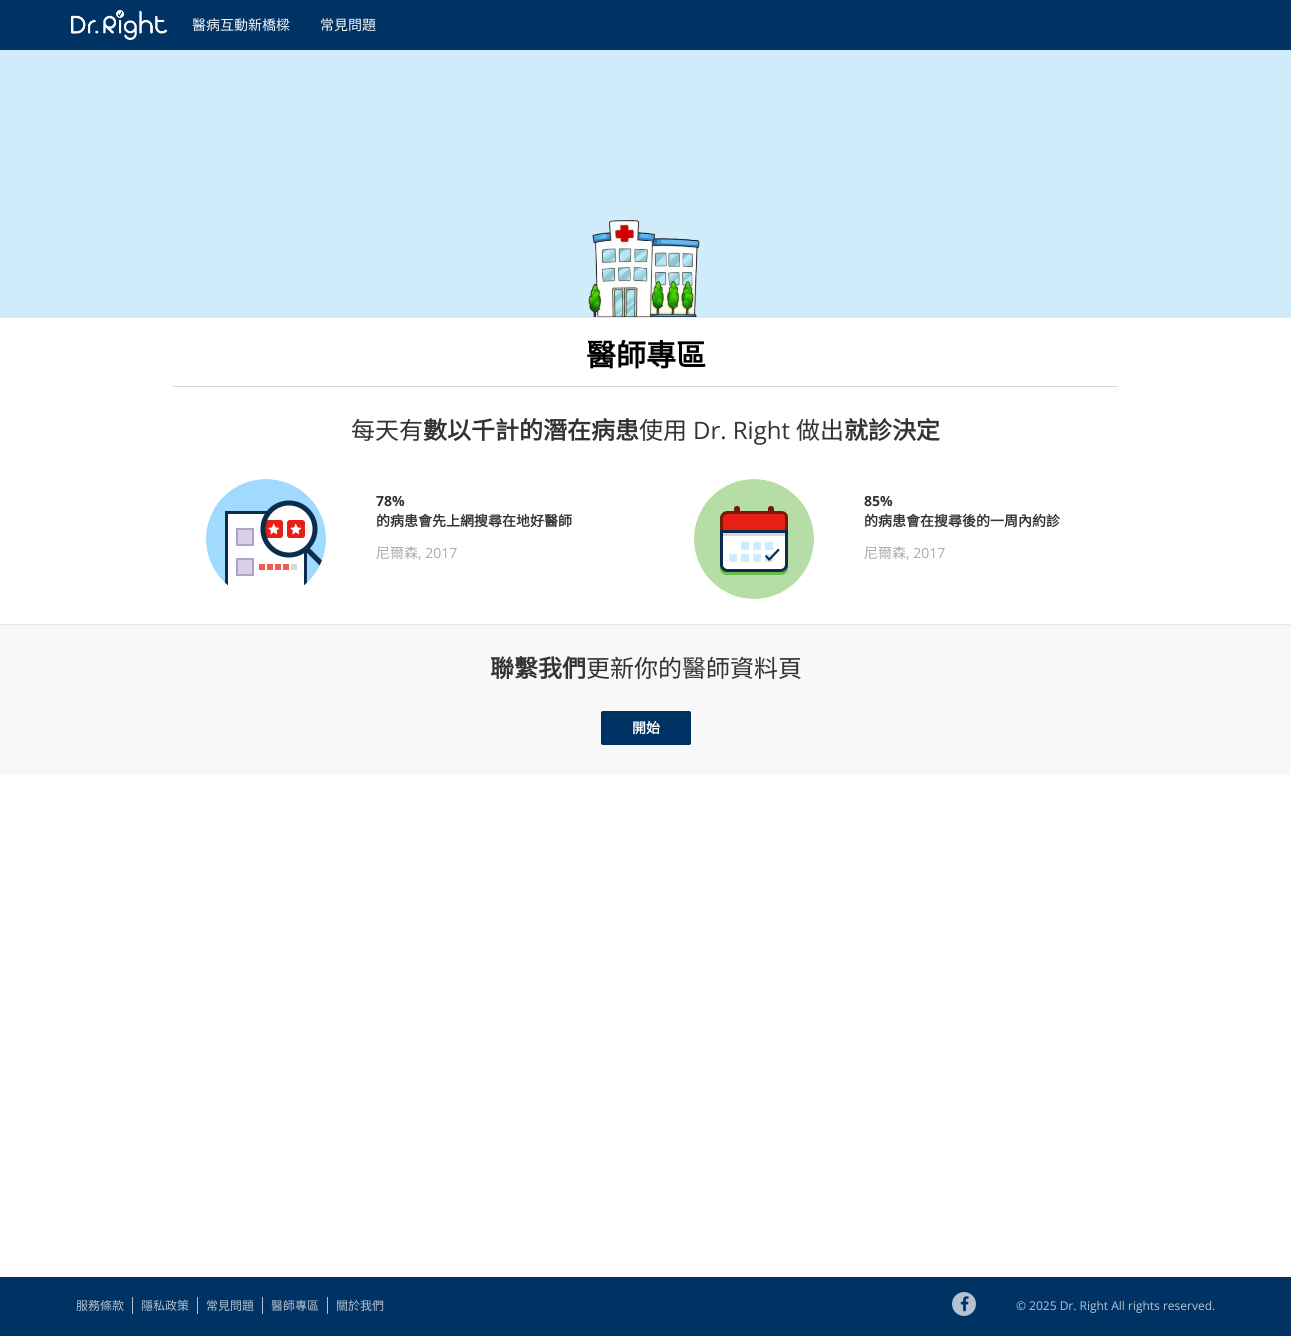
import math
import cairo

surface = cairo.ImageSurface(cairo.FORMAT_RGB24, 1291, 1336)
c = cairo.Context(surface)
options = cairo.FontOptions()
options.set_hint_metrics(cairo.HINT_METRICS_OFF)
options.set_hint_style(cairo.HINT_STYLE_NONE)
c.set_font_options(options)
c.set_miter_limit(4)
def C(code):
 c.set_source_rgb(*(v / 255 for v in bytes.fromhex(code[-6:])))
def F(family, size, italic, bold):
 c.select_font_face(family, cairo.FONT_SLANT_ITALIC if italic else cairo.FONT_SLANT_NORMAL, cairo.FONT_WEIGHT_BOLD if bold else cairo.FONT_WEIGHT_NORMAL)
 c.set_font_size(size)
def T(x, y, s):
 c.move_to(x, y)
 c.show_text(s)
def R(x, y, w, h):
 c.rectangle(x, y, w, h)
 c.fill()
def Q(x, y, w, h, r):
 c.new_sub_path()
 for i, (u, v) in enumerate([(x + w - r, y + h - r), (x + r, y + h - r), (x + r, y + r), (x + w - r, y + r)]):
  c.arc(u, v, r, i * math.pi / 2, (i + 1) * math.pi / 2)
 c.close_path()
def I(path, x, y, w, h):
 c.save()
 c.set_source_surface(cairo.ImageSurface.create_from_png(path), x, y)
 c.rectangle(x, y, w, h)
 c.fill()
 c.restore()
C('ffffff')
c.paint()
C('003264')
R(0,0,1291,50)
I('1.png',71,10,96,30)
F('Noto Sans CJK TC',14,0,0)
C('f8f8f8')
T(192,30,'醫病互動新橋樑')
T(320,30,'常見問題')
C('d0ecfb')
R(0,50,1291,267)
I('2.png',588,220,112,97)
C('e7e7e7')
R(0,317,1291,1)
R(0,624,1291,1)
C('d9d9d9')
R(173,386,945,1)
F('Noto Sans CJK TC',30,0,1)
C('000000')
T(586,366,'醫師專區')
F('Noto Sans CJK TC',24,0,0)
C('333333')
T(351,439,'每天有')
F('Noto Sans CJK TC',24,0,1)
T(423,439,'數以千計的潛在病患')
F('Noto Sans CJK TC',24,0,0)
T(639,439,'使用')
F('Open Sans',24,0,0)
T(693,439,'Dr. Right')
F('Noto Sans CJK TC',24,0,0)
T(796,439,'做出')
F('Noto Sans CJK TC',24,0,1)
T(844,439,'就診決定')
I('3.png',206,479,120,107)
F('Open Sans',14,0,1)
T(376,506,'78%')
F('Noto Sans CJK TC',14,0,1)
T(376,526,'的病患會先上網搜尋在地好醫師')
F('Noto Sans CJK TC',14,0,0)
C('aaaaaa')
T(376,558,'尼爾森')
F('Open Sans',14,0,0)
T(418,558,', 2017')
I('4.png',694,479,120,120)
F('Open Sans',14,0,1)
C('333333')
T(864,506,'85%')
F('Noto Sans CJK TC',14,0,1)
T(864,526,'的病患會在搜尋後的一周內約診')
F('Noto Sans CJK TC',14,0,0)
C('aaaaaa')
T(864,558,'尼爾森')
F('Open Sans',14,0,0)
T(906,558,', 2017')
C('f8f8f8')
R(0,625,1291,150)
F('Noto Sans CJK TC',24,0,1)
C('333333')
T(490,677,'聯繫我們')
F('Noto Sans CJK TC',24,0,0)
T(586,677,'更新你的醫師資料頁')
C('003264')
Q(601.5,711.5,89,33,1.5)
c.fill_preserve()
C('002e5d')
c.set_line_width(1)
c.stroke()
F('Noto Sans CJK TC',14,0,1)
C('ffffff')
T(632,733,'開始')
C('003264')
R(0,1277,1291,59)
F('Noto Sans CJK TC',12,0,0)
C('b3c2d1')
T(76,1310,'服務條款')
R(132,1297,1,17)
T(141,1310,'隱私政策')
R(197,1297,1,17)
T(206,1310,'常見問題')
R(262,1297,1,17)
T(271,1310,'醫師專區')
R(327,1297,1,17)
T(336,1310,'關於我們')
c.new_path()
c.arc(964,1304,12,0,2 * math.pi)
c.fill()
I('5.png',960,1296,9,16)
F('Open Sans',12,0,0)
T(1016,1310,'© 2025 Dr. Right All rights reserved.')
surface.write_to_png('o.png')
